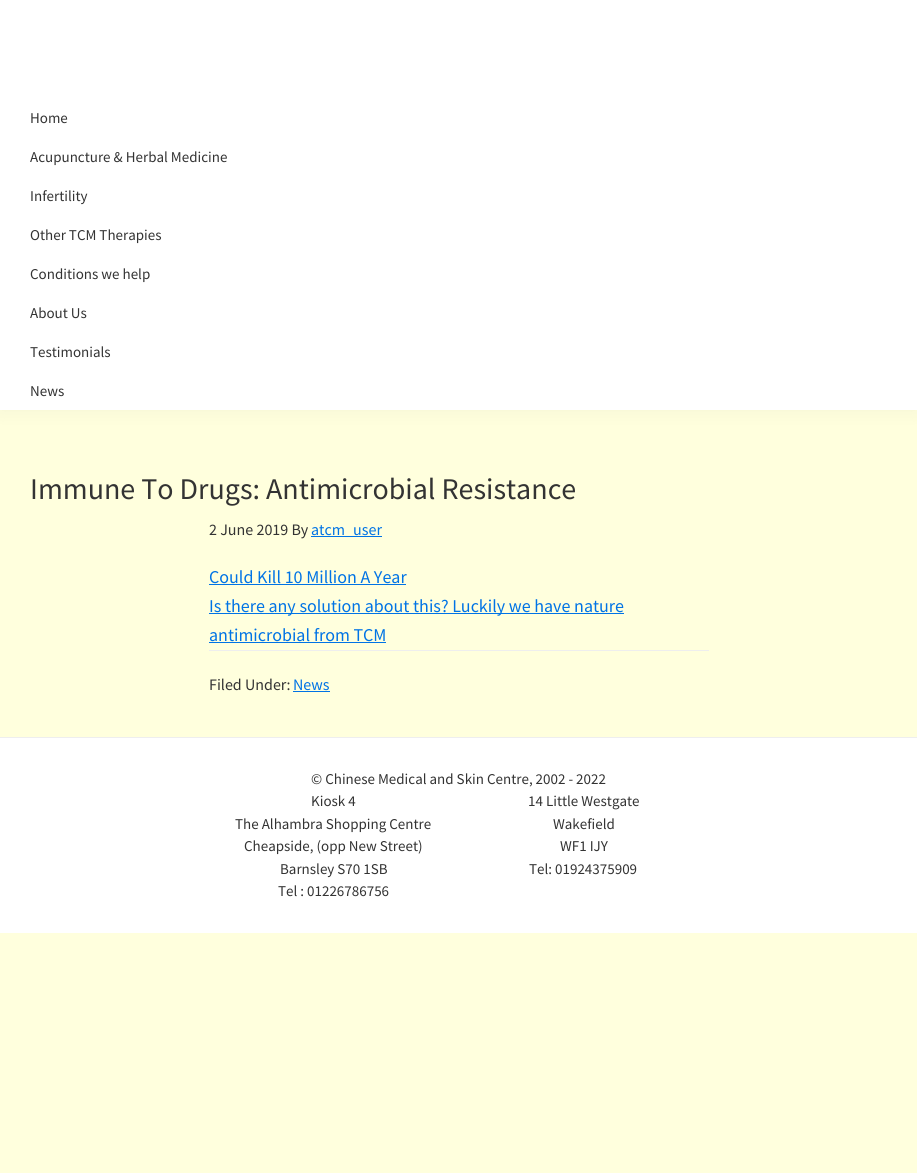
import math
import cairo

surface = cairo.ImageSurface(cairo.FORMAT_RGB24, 917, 1173)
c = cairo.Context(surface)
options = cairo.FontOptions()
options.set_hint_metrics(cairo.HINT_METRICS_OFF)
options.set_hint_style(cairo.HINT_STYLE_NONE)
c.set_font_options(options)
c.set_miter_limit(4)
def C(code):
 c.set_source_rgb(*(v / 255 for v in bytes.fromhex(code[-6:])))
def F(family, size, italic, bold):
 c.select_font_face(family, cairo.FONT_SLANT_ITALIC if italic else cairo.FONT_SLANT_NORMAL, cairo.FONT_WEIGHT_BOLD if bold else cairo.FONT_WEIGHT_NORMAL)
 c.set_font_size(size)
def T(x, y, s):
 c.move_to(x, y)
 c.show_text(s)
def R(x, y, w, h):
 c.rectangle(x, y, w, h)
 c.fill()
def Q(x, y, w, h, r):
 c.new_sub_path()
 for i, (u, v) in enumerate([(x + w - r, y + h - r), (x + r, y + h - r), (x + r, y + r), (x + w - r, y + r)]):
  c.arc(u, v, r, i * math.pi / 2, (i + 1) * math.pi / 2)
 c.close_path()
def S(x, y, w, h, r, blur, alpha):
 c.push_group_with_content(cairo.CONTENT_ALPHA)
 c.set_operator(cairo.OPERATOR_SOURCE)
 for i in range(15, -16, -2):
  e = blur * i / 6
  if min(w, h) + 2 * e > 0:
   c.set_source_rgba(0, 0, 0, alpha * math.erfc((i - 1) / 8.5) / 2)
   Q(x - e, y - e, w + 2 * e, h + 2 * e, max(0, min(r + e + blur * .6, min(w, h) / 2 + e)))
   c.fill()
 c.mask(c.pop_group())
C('ffffdd')
c.paint()
C('000000')
S(0,0,917,410,0,10,.05)
C('ffffff')
R(0,0,917,410)
F('Source Sans Pro',15,0,0)
C('333333')
T(30,123,'Home')
T(30,162,'Acupuncture & Herbal Medicine')
T(30,201,'Infertility')
T(30,240,'Other TCM Therapies')
T(30,279,'Conditions we help')
T(30,318,'About Us')
T(30,357,'Testimonials')
T(30,396,'News')
F('Source Sans Pro',30,0,0)
T(30,499,'Immune To Drugs: Antimicrobial Resistance')
F('Source Sans Pro',16,0,0)
T(209,535,'2 June 2019 By')
C('0073e5')
R(311,536,71,1)
T(311,535,'atcm_user')
F('Source Sans Pro',18,0,0)
T(209,583,'Could Kill 10 Million A Year')
R(209,584,197,1)
R(209,613,415,1)
T(209,612,'Is there any solution about this? Luckily we have nature')
T(209,641,'antimicrobial from TCM')
R(209,642,177,1)
C('eeeeee')
R(209,650,500,1)
F('Source Sans Pro',16,0,0)
C('333333')
T(209,690,'Filed Under:')
C('0073e5')
T(293,690,'News')
R(293,691,37,1)
C('ffffff')
R(0,738,917,195)
C('eeeeee')
R(0,737,917,1)
F('Source Sans Pro',15,0,0)
C('333333')
T(311,784,'© Chinese Medical and Skin Centre, 2002 - 2022')
T(311,806,'Kiosk 4')
T(235,829,'The Alhambra Shopping Centre')
T(244,851,'Cheapside, (opp New Street)')
T(280,874,'Barnsley S70 1SB')
T(278,896,'Tel : 01226786756')
T(528,806,'14 Little Westgate')
T(553,829,'Wakefield')
T(560,851,'WF1 IJY')
T(529,874,'Tel: 01924375909')
surface.write_to_png('o.png')
